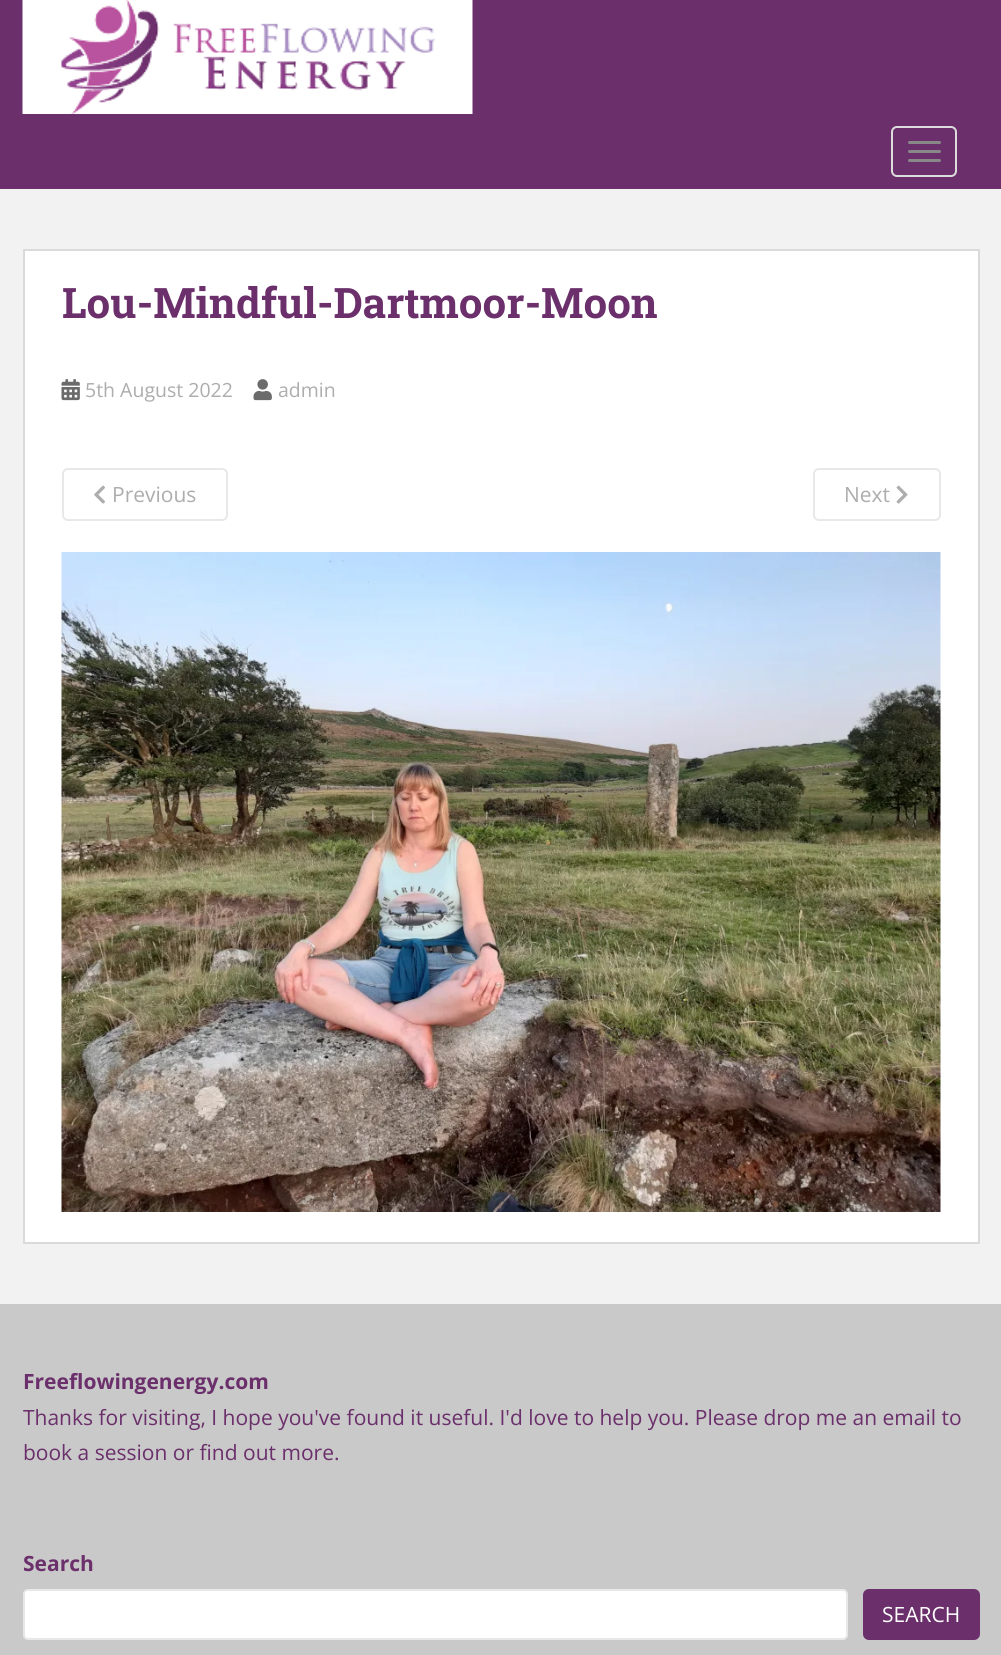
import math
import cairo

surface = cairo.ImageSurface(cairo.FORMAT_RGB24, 1001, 1655)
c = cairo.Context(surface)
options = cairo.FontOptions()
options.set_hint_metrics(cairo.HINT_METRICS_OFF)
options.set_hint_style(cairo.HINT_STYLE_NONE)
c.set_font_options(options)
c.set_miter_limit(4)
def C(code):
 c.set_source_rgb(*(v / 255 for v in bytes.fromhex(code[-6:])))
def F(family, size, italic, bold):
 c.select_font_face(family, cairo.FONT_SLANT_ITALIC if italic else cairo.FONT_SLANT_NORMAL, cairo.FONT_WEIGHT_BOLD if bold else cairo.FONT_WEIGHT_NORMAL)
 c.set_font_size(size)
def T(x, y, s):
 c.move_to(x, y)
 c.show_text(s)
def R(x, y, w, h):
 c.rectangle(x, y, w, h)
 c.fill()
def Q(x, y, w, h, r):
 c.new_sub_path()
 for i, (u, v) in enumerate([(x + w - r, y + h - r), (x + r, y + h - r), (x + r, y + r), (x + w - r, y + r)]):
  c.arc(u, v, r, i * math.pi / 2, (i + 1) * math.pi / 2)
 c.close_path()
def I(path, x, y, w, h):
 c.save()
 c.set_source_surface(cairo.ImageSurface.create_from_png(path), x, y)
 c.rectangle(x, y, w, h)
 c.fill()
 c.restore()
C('f2f2f2')
c.paint()
C('6b2f6b')
R(0,0,1001,189)
I('1.png',22,0,451,114)
Q(892,127,64,49,5)
C('dddddd')
c.stroke()
C('888888')
Q(908,141,33,3,1.5)
c.fill()
Q(908,150,33,3,1.5)
c.fill()
Q(908,159,33,3,1.5)
c.fill()
C('ffffff')
c.rectangle(24,250,955,993)
c.fill_preserve()
C('dadada')
c.stroke()
F('Roboto Slab',42,0,1)
C('6b2f6b')
T(62,318,'Lou-Mindful-Dartmoor-Moon')
I('2.png',61,379,19,22)
F('Open Sans',19.5,0,0)
C('adadad')
T(85,397,'5th August 2022')
I('3.png',253,379,19,22)
T(278,397,'admin')
Q(63,469,164,51,5)
C('e8e8e8')
c.stroke()
I('4.png',94,485,11,19)
F('Open Sans',21,0,0)
C('adadad')
T(112,502,'Previous')
Q(814,469,126,51,5)
C('e8e8e8')
c.stroke()
C('adadad')
T(844,502,'Next')
I('5.png',896,485,12,19)
I('6.png',61,552,880,660)
C('c9c9c9')
R(0,1304,1001,351)
F('Open Sans',21,0,1)
C('6b2f6b')
T(23,1389,'Freeflowingenergy.com')
F('Open Sans',21,0,0)
T(23,1425,'Thanks for visiting, I hope you\'ve found it useful. I\'d love to help you. Please drop me an email to')
T(23,1460,'book a session or find out more.')
F('Open Sans',21,0,1)
T(23,1571,'Search')
C('ffffff')
Q(24,1590,823,49,4)
c.fill_preserve()
C('e8e8e8')
c.stroke()
C('6b2f6b')
Q(864,1590,115,49,5)
c.fill_preserve()
c.stroke()
F('Open Sans',21,0,0)
C('ffffff')
T(882,1622,'SEARCH')
surface.write_to_png('o.png')
